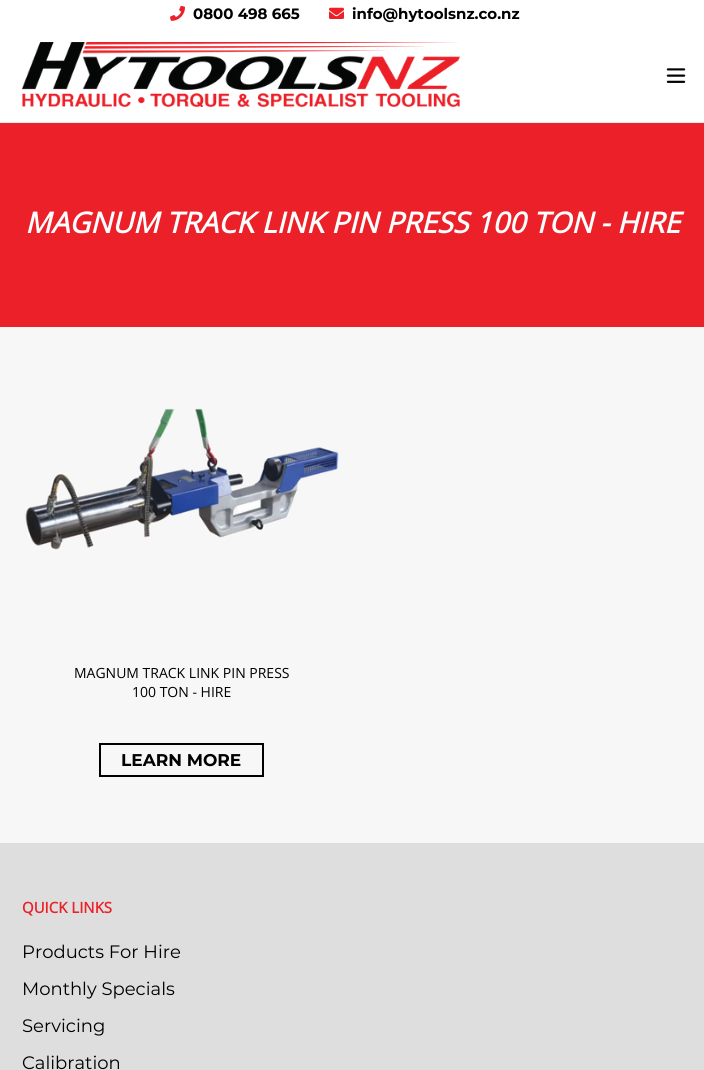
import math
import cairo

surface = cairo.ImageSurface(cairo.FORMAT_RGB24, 704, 1070)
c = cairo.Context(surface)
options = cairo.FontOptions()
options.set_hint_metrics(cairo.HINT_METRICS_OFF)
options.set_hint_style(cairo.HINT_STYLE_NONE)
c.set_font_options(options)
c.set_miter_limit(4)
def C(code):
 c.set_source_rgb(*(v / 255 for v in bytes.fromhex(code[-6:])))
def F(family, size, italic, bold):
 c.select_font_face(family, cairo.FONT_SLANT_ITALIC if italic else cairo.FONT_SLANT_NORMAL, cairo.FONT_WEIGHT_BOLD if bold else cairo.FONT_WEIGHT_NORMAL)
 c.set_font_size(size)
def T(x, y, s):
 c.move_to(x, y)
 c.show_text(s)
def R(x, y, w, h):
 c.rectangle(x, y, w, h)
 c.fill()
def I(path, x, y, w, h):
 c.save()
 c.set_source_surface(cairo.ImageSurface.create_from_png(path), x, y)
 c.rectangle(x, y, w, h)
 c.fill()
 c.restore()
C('ffffff')
c.paint()
C('eb2028')
R(0,123,704,204)
C('e8e9eb')
R(0,122,704,1)
I('1.png',170,5,15,16)
F('Montserrat',15,0,1)
C('000000')
T(193,19,'0800 498 665')
I('2.png',329,7,15,12)
T(352,19,'info@hytoolsnz.co.nz')
I('3.png',22,42,438,65)
I('4.png',666,68,20,15)
C('f7f7f7')
R(0,327,704,516)
F('Open Sans',28.8,1,1)
C('ffffff')
T(25,233,'MAGNUM TRACK LINK PIN PRESS 100 TON - HIRE')
I('5.png',24,408,315,142)
F('Open Sans',14,0,0)
C('000000')
T(74,678,'MAGNUM TRACK LINK PIN PRESS')
T(132,697,'100 TON - HIRE')
c.rectangle(100,744,163,32)
c.stroke()
F('Montserrat',17,0,1)
T(121,766,'LEARN MORE')
C('dedede')
R(0,843,704,227)
F('Open Sans',15,0,1)
C('eb2028')
T(22,913,'QUICK LINKS')
F('Montserrat',18,0,0)
C('000000')
T(22,958,'Products For Hire')
T(22,995,'Monthly Specials')
T(22,1032,'Servicing')
T(22,1069,'Calibration')
surface.write_to_png('o.png')
